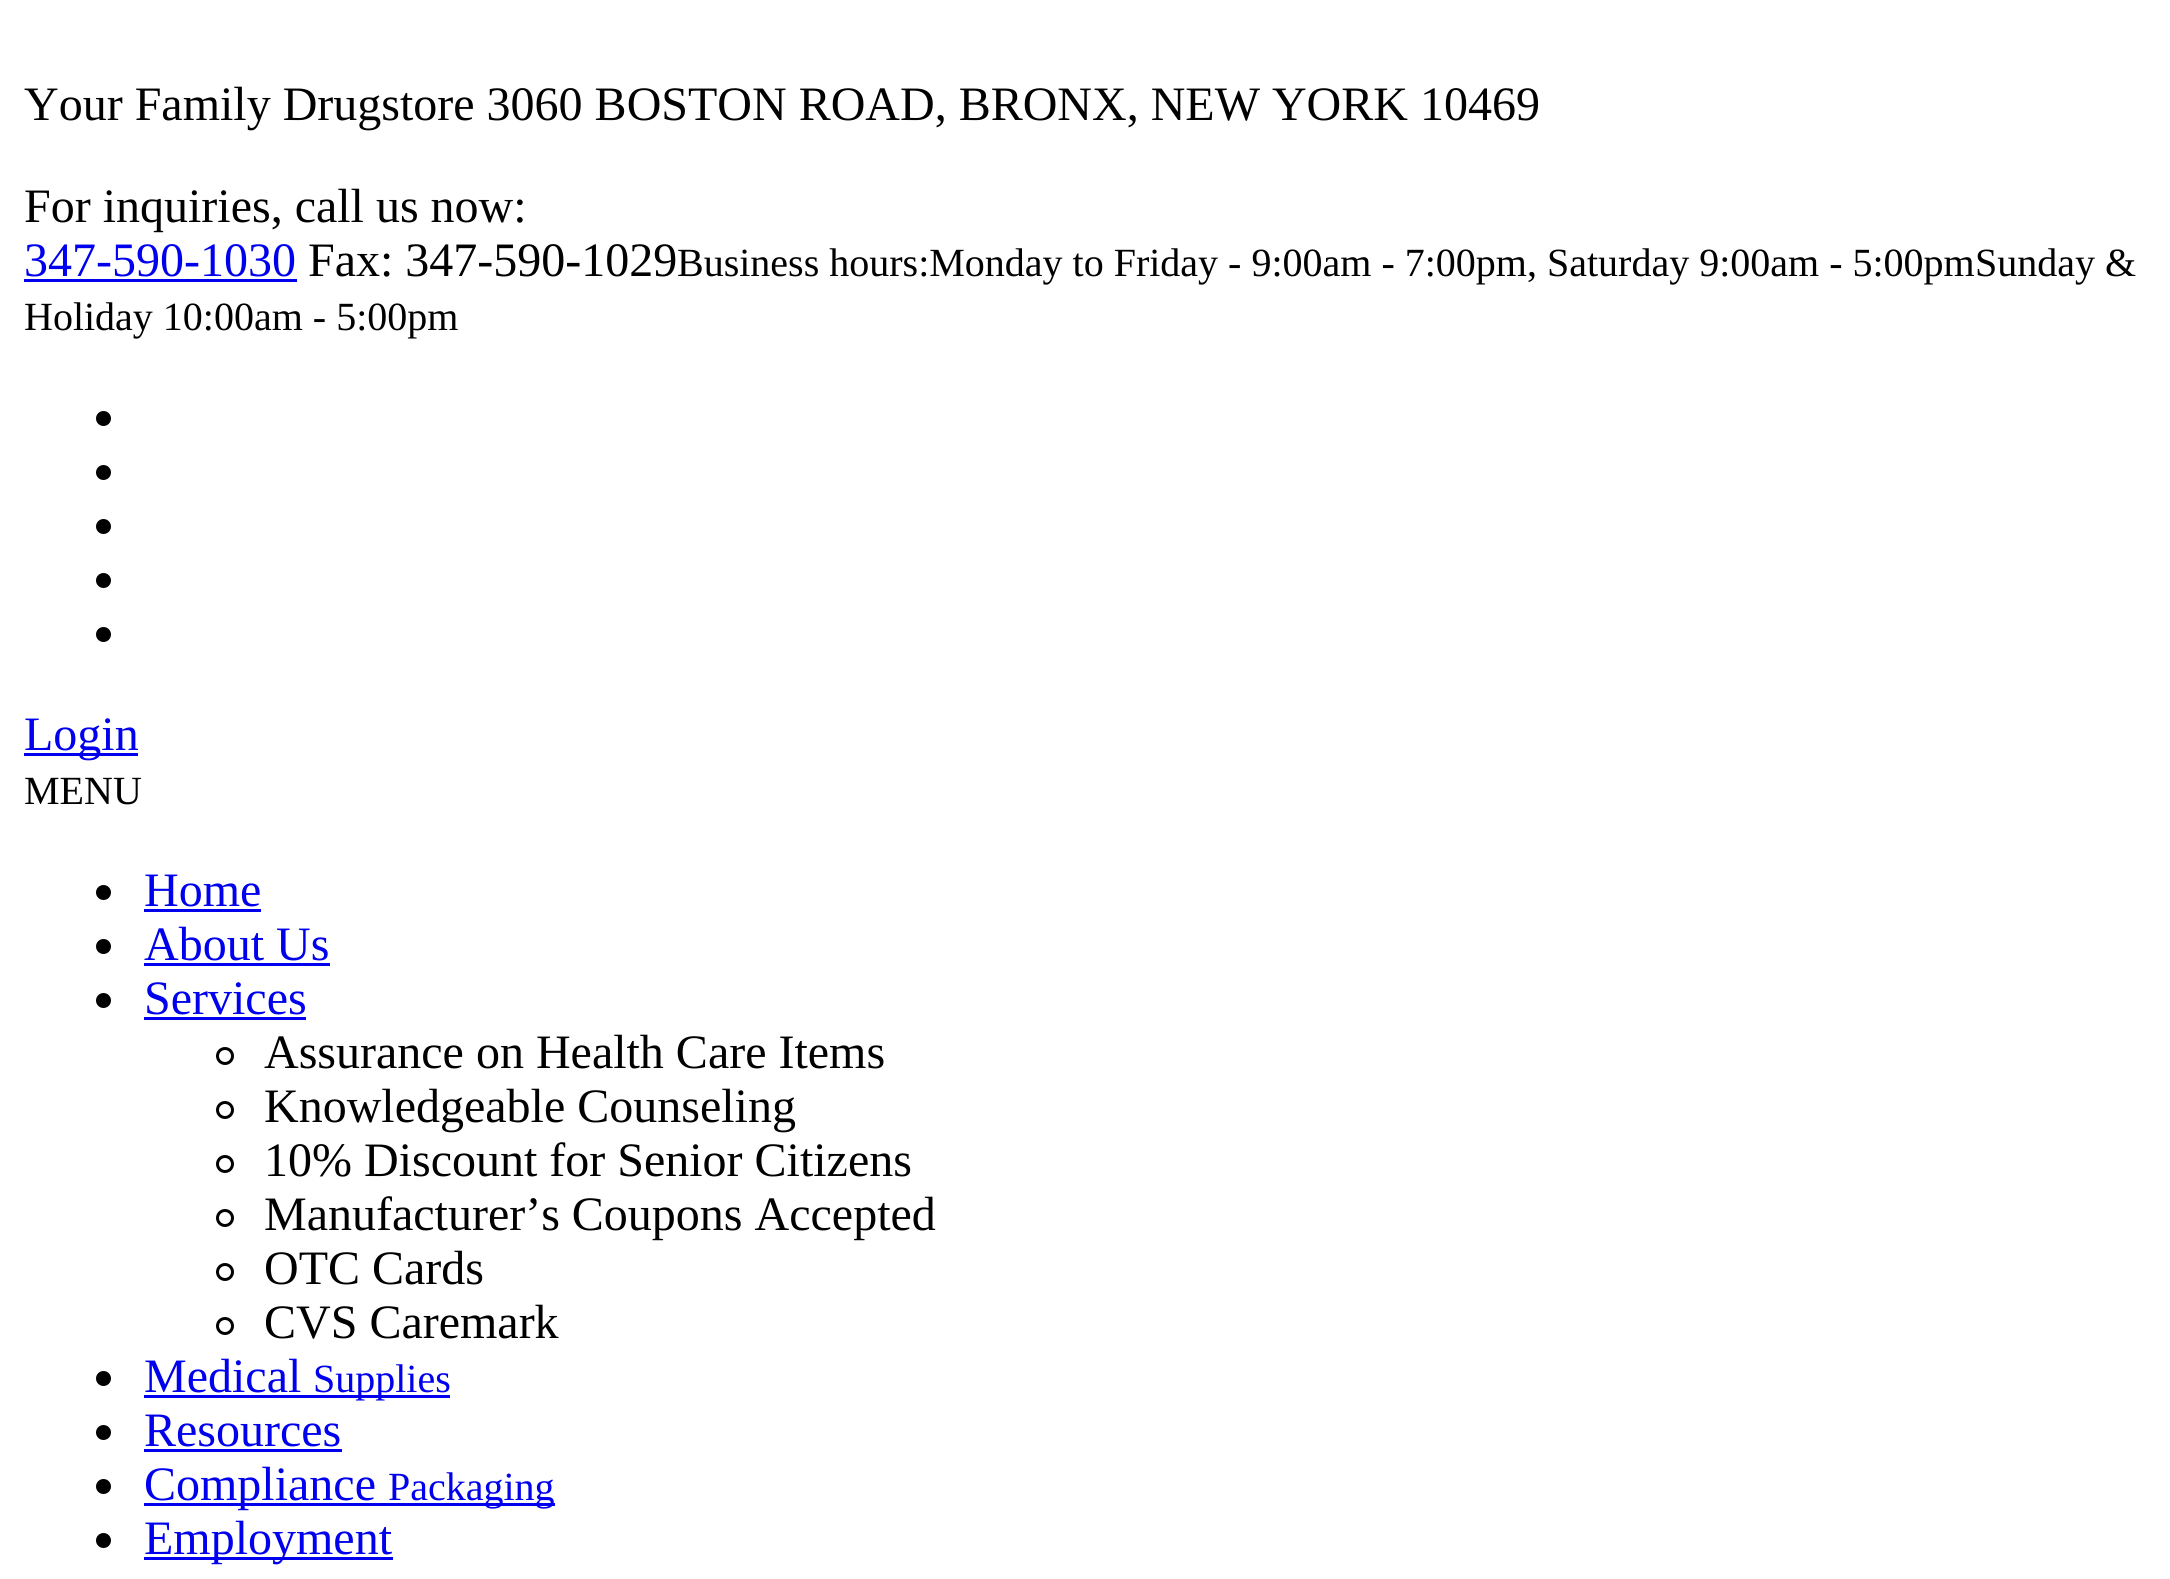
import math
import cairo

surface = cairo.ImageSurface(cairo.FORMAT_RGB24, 2170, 1579)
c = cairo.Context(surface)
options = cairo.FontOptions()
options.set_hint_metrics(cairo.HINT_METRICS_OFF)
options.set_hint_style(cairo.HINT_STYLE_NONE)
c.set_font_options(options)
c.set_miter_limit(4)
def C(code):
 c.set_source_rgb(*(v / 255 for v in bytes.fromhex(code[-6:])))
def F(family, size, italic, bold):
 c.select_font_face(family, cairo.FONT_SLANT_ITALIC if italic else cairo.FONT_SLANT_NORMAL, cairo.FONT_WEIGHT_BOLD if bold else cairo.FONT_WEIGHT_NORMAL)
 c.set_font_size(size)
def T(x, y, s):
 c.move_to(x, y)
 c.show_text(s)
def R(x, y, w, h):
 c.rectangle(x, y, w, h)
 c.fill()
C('ffffff')
c.paint()
F('Liberation Serif',48,0,0)
C('000000')
T(24,120,'Your Family Drugstore 3060 BOSTON ROAD, BRONX, NEW YORK 10469')
T(24,222,'For inquiries, call us now:')
C('0000ee')
T(24,276,'347-590-1030')
R(24,279,273,3)
C('000000')
T(308,276,'Fax: 347-590-1029')
F('Liberation Serif',40,0,0)
T(677,276,'Business hours:Monday to Friday - 9:00am - 7:00pm, Saturday 9:00am - 5:00pm')
T(1975,276,'Sunday &')
T(24,330,'Holiday 10:00am - 5:00pm')
c.new_path()
c.arc(103.5,418.5,7.5,0,2 * math.pi)
c.fill()
c.arc(103.5,472.5,7.5,0,2 * math.pi)
c.fill()
c.arc(103.5,526.5,7.5,0,2 * math.pi)
c.fill()
c.arc(103.5,580.5,7.5,0,2 * math.pi)
c.fill()
c.arc(103.5,634.5,7.5,0,2 * math.pi)
c.fill()
C('0000ee')
R(24,753,114,3)
F('Liberation Serif',48,0,0)
T(24,750,'Login')
F('Liberation Serif',40,0,0)
C('000000')
T(24,804,'MENU')
c.new_path()
c.arc(103.5,892.5,7.5,0,2 * math.pi)
c.fill()
F('Liberation Serif',48,0,0)
C('0000ee')
T(144,906,'Home')
R(144,909,117,3)
C('000000')
c.new_path()
c.arc(103.5,946.5,7.5,0,2 * math.pi)
c.fill()
C('0000ee')
T(144,960,'About Us')
R(144,963,186,3)
C('000000')
c.new_path()
c.arc(103.5,1000.5,7.5,0,2 * math.pi)
c.fill()
C('0000ee')
T(144,1014,'Services')
R(144,1017,162,3)
c.new_path()
c.arc(225,1056,7.5,0,2 * math.pi)
C('000000')
c.set_line_width(3)
c.stroke()
T(264,1068,'Assurance on Health Care Items')
c.new_path()
c.arc(225,1110,7.5,0,2 * math.pi)
c.stroke()
T(264,1122,'Knowledgeable Counseling')
c.new_path()
c.arc(225,1164,7.5,0,2 * math.pi)
c.stroke()
T(264,1176,'10% Discount for Senior Citizens')
c.new_path()
c.arc(225,1218,7.5,0,2 * math.pi)
c.stroke()
T(264,1230,'Manufacturer’s Coupons Accepted')
c.new_path()
c.arc(225,1272,7.5,0,2 * math.pi)
c.stroke()
T(264,1284,'OTC Cards')
c.new_path()
c.arc(225,1326,7.5,0,2 * math.pi)
c.stroke()
T(264,1338,'CVS Caremark')
c.new_path()
c.arc(103.5,1378.5,7.5,0,2 * math.pi)
c.fill()
C('0000ee')
T(144,1392,'Medical')
R(144,1395,306,3)
F('Liberation Serif',40,0,0)
T(313,1392,'Supplies')
C('000000')
c.new_path()
c.arc(103.5,1432.5,7.5,0,2 * math.pi)
c.fill()
F('Liberation Serif',48,0,0)
C('0000ee')
T(144,1446,'Resources')
R(144,1449,198,3)
C('000000')
c.new_path()
c.arc(103.5,1486.5,7.5,0,2 * math.pi)
c.fill()
C('0000ee')
R(144,1503,411,3)
T(144,1500,'Compliance')
F('Liberation Serif',40,0,0)
T(388,1500,'Packaging')
C('000000')
c.new_path()
c.arc(103.5,1540.5,7.5,0,2 * math.pi)
c.fill()
C('0000ee')
R(144,1557,249,3)
F('Liberation Serif',48,0,0)
T(144,1554,'Employment')
surface.write_to_png('o.png')
